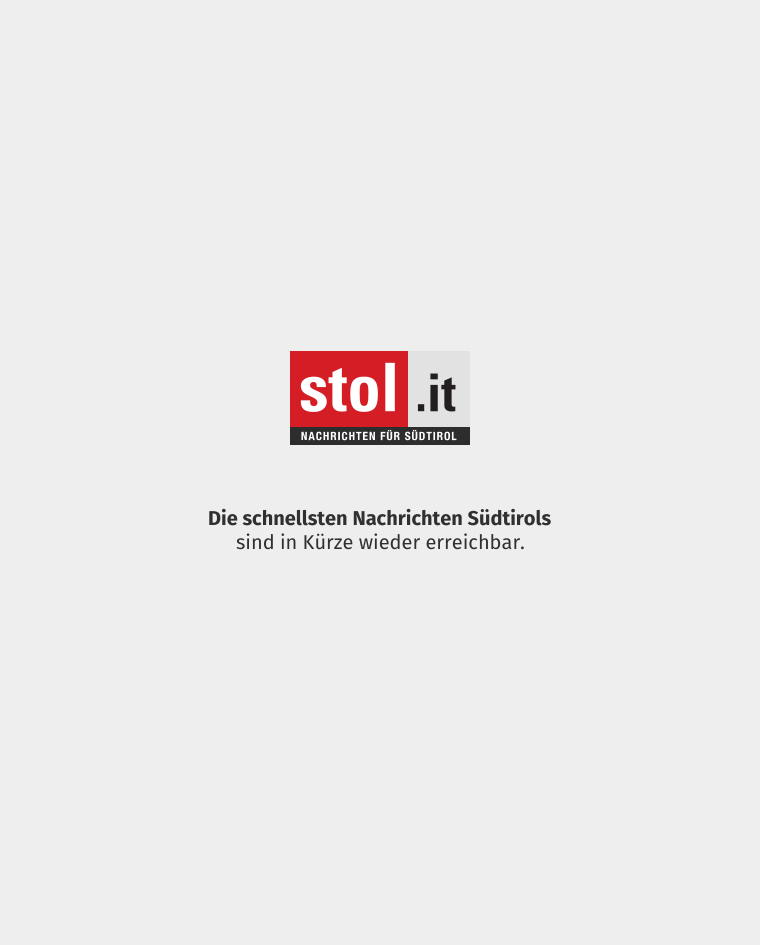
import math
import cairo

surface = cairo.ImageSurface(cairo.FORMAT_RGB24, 760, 945)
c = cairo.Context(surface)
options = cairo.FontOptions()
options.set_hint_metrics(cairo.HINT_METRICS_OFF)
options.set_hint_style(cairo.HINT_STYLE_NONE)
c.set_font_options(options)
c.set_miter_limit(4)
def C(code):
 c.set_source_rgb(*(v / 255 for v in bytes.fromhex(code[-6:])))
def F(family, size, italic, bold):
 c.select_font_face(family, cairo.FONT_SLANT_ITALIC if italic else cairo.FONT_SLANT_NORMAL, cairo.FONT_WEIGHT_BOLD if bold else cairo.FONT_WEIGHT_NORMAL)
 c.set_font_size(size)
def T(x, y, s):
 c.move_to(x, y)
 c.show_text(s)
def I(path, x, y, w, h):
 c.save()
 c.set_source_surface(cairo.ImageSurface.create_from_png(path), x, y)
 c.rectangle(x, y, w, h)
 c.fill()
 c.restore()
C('eeeeee')
c.paint()
I('1.png',290,351,180,94)
F('Fira Sans',20,0,1)
C('303030')
T(208,525,'Die schnellsten Nachrichten Südtirols')
F('Fira Sans',20,0,0)
T(236,549,'sind in Kürze wieder erreichbar.')
surface.write_to_png('o.png')
